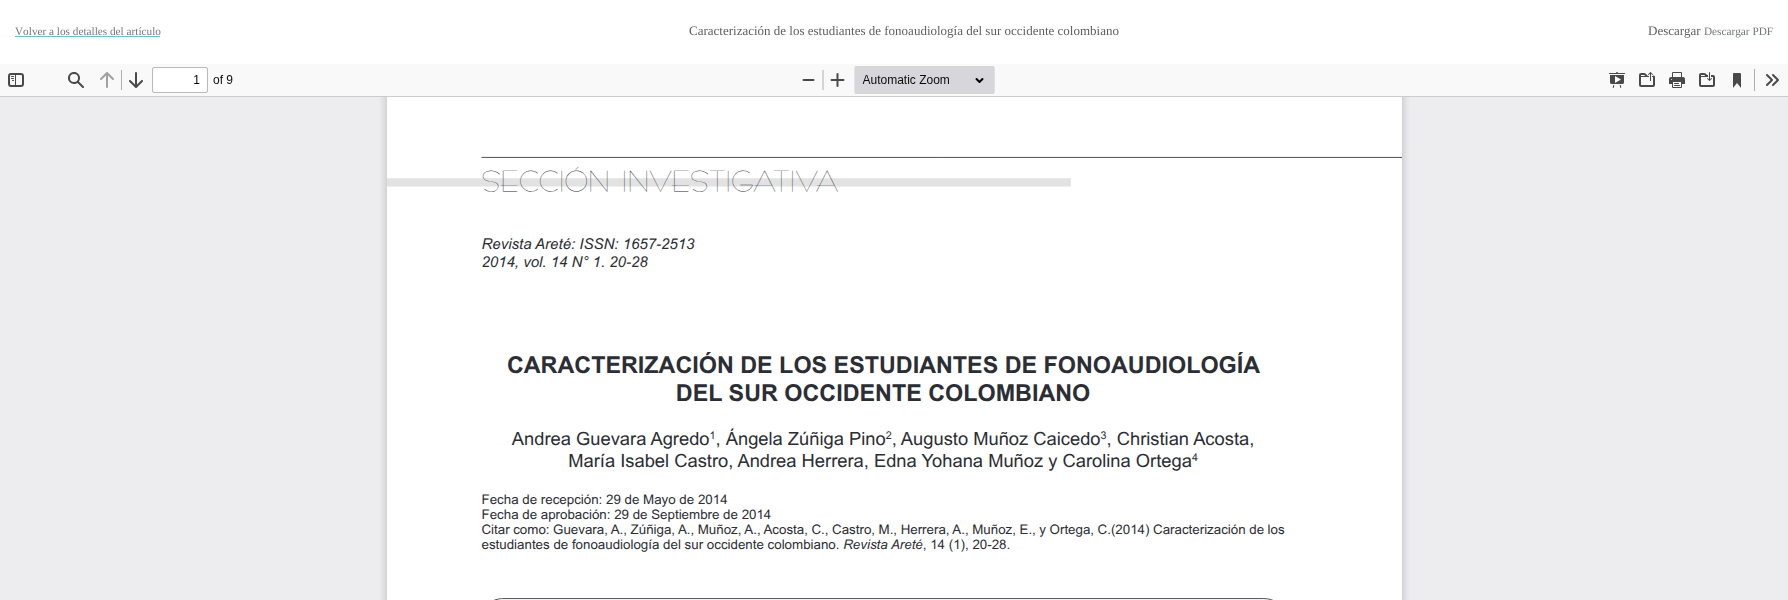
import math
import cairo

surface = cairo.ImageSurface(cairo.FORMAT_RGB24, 1788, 600)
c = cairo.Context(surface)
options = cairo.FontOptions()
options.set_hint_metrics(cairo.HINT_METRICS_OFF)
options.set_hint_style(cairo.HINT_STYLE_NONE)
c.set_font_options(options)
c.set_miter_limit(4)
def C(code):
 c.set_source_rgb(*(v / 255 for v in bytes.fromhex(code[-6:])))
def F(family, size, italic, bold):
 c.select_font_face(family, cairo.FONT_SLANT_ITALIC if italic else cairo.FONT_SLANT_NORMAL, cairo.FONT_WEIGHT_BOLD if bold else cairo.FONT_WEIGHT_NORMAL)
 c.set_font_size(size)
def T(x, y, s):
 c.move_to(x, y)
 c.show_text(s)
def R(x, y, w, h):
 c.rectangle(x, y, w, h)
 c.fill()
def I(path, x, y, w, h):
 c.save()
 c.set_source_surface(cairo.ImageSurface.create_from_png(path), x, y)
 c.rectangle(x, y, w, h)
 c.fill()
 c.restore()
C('ffffff')
c.paint()
F('Liberation Serif',11.25,0,0)
C('6c757d')
T(15,35,'Volver a los detalles del artículo')
C('6cc2be')
R(15,36,145,1)
F('Liberation Serif',13,0,0)
C('5d5d5d')
T(689,35,'Caracterización de los estudiantes de fonoaudiología del sur occidente colombiano')
T(1648,35,'Descargar')
F('Liberation Serif',11.25,0,0)
C('6c757d')
T(1704,35,'Descargar PDF')
I('1.png',0,64,1788,536)
surface.write_to_png('o.png')
